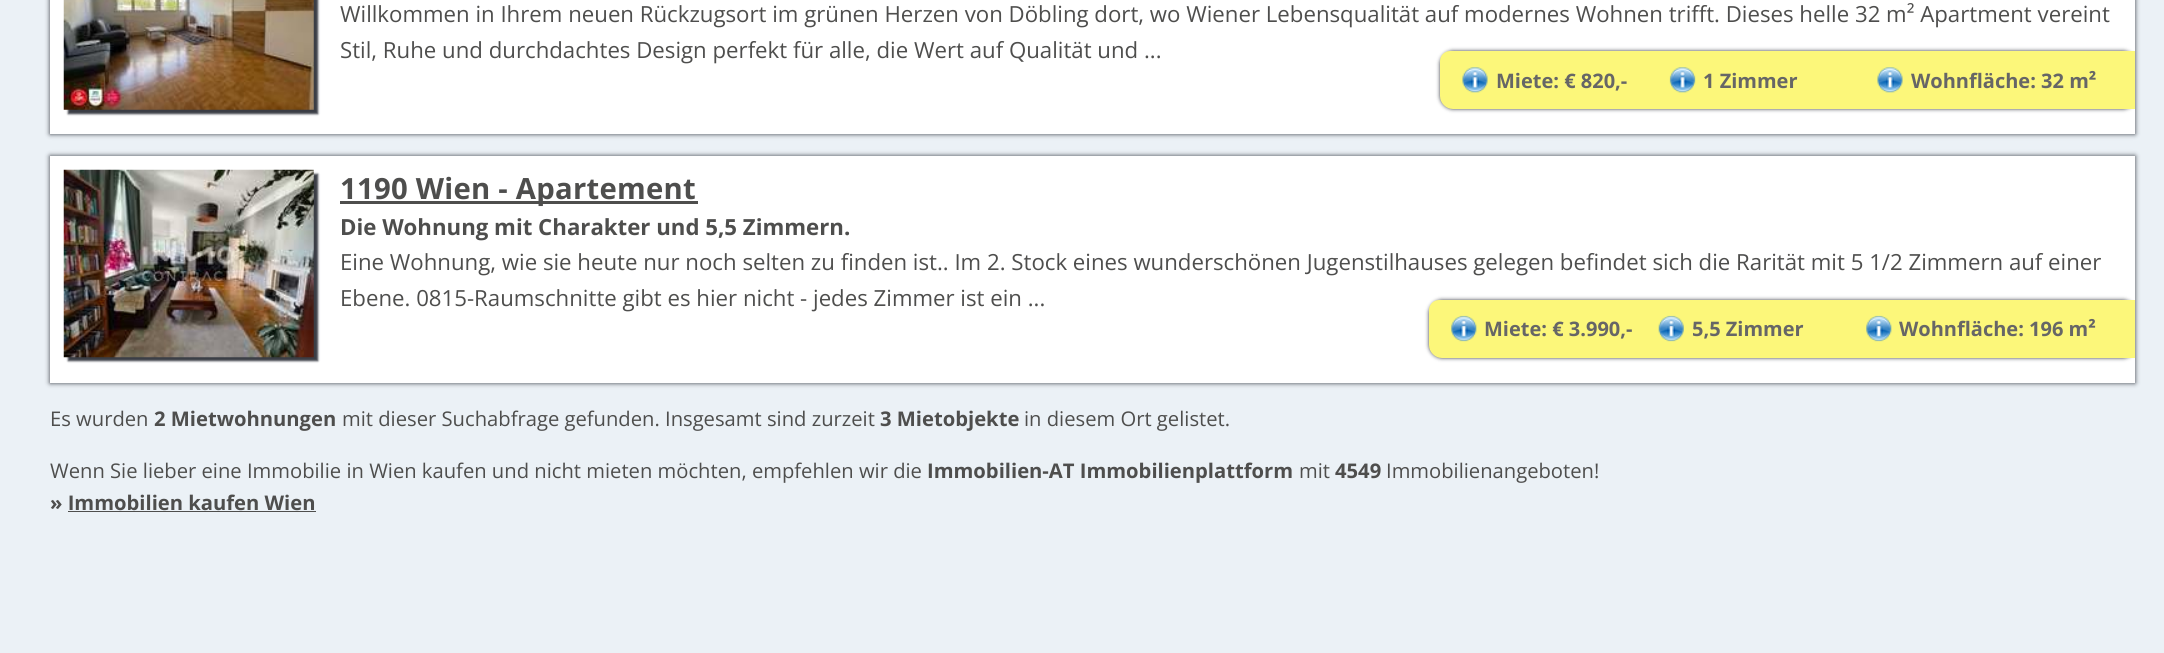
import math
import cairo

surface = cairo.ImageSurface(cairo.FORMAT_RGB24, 2164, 653)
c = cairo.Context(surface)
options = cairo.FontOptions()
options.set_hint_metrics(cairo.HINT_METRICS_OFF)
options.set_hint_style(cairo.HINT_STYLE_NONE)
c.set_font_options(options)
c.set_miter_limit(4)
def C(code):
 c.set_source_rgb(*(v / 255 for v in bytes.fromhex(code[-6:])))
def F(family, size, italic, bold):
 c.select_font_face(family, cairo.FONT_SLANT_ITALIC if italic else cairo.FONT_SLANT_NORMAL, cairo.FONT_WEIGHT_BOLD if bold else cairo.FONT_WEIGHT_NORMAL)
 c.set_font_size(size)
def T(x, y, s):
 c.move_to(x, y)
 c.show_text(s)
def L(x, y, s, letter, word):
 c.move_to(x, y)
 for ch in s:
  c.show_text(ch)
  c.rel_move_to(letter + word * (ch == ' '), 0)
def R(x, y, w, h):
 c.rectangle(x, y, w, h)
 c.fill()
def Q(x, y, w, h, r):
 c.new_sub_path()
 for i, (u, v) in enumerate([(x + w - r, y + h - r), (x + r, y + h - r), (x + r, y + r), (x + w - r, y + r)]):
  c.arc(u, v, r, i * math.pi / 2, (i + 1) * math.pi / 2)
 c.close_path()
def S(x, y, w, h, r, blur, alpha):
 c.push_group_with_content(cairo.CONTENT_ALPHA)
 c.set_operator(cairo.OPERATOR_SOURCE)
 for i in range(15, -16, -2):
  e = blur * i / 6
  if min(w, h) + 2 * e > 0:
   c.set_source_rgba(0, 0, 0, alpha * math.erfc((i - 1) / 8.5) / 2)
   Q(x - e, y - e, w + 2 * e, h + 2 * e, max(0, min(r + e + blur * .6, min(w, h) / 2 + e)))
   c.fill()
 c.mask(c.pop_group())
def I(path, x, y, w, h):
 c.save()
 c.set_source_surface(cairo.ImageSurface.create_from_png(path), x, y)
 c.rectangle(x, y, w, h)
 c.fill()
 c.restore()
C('ebf1f6')
c.paint()
C('3a3d45')
S(50,-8,2085,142,0,2.5,1)
C('ffffff')
R(50,0,2085,134)
C('3a3d45')
S(68,-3,250,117,0,1,1)
I('1.png',63,0,251,110)
F('Open Sans',22.22,0,0)
C('4e4e4d')
T(340,22,'Willkommen in Ihrem neuen Rückzugsort im grünen Herzen von Döbling dort, wo Wiener Lebensqualität auf modernes Wohnen trifft. Dieses helle 32 m² Apartment vereint')
T(340,58,'Stil, Ruhe und durchdachtes Design perfekt für alle, die Wert auf Qualität und ...')
c.save()
c.rectangle(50,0,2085,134)
c.clip()
C('3a3d45')
S(1440,51,696,58,13,2,1)
c.restore()
C('fcf77a')
c.new_path()
c.move_to(1450,51)
c.line_to(2135,51)
c.line_to(2135,109)
c.line_to(1453,109)
c.curve_to(1446,109,1440,103,1440,96)
c.line_to(1440,61)
c.curve_to(1440,55.5,1444.5,51,1450,51)
c.close_path()
c.fill()
I('2.png',1462,67,26,26)
F('Open Sans',20,0,1)
C('666666')
T(1496,88,'Miete: € 820,-')
I('3.png',1669,67,27,26)
T(1703,88,'1 Zimmer')
I('2.png',1877,67,26,26)
T(1911,88,'Wohnfläche: 32 m²')
C('3a3d45')
S(50,156,2085,227,0,2.5,1)
C('ffffff')
R(50,156,2085,227)
C('3a3d45')
S(68,174,250,187,0,1,1)
I('4.png',63,169,251,189)
C('4e4e4d')
R(340,201,358,3)
F('Open Sans',29.25,0,1)
L(340,199,'1190 Wien - Apartement',.25,0)
F('Open Sans',22.22,0,1)
T(340,235,'Die Wohnung mit Charakter und 5,5 Zimmern.')
F('Open Sans',22.22,0,0)
T(340,270,'Eine Wohnung, wie sie heute nur noch selten zu finden ist.. Im 2. Stock eines wunderschönen Jugenstilhauses gelegen befindet sich die Rarität mit 5 1/2 Zimmern auf einer')
T(340,306,'Ebene. 0815-Raumschnitte gibt es hier nicht - jedes Zimmer ist ein ...')
c.save()
c.rectangle(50,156,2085,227)
c.clip()
C('3a3d45')
S(1429,300,707,58,13,2,1)
c.restore()
C('fcf77a')
c.new_path()
c.move_to(1439,300)
c.line_to(2135,300)
c.line_to(2135,358)
c.line_to(1442,358)
c.curve_to(1435,358,1429,352,1429,345)
c.line_to(1429,310)
c.curve_to(1429,304.5,1433.5,300,1439,300)
c.close_path()
c.fill()
I('5.png',1451,315,26,27)
F('Open Sans',20,0,1)
C('666666')
T(1484,336,'Miete: € 3.990,-')
I('6.png',1658,315,26,27)
T(1692,336,'5,5 Zimmer')
I('5.png',1866,315,26,27)
T(1899,336,'Wohnfläche: 196 m²')
F('Open Sans',20.2,0,0)
C('4e4e4d')
T(50,426,'Es wurden')
F('Open Sans',20.2,0,1)
T(154,426,'2 Mietwohnungen')
F('Open Sans',20.2,0,0)
T(342,426,'mit dieser Suchabfrage gefunden. Insgesamt sind zurzeit')
F('Open Sans',20.2,0,1)
T(880,426,'3 Mietobjekte')
F('Open Sans',20.2,0,0)
T(1024,426,'in diesem Ort gelistet.')
T(50,478,'Wenn Sie lieber eine Immobilie in Wien kaufen und nicht mieten möchten, empfehlen wir die')
F('Open Sans',20.2,0,1)
T(927,478,'Immobilien-AT Immobilienplattform')
F('Open Sans',20.2,0,0)
T(1299,478,'mit')
F('Open Sans',20.2,0,1)
T(1335,478,'4549')
F('Open Sans',20.2,0,0)
T(1386,478,'Immobilienangeboten!')
F('Open Sans',20.2,0,1)
T(50,510,'» Immobilien kaufen Wien')
R(68,511,248,1)
surface.write_to_png('o.png')
